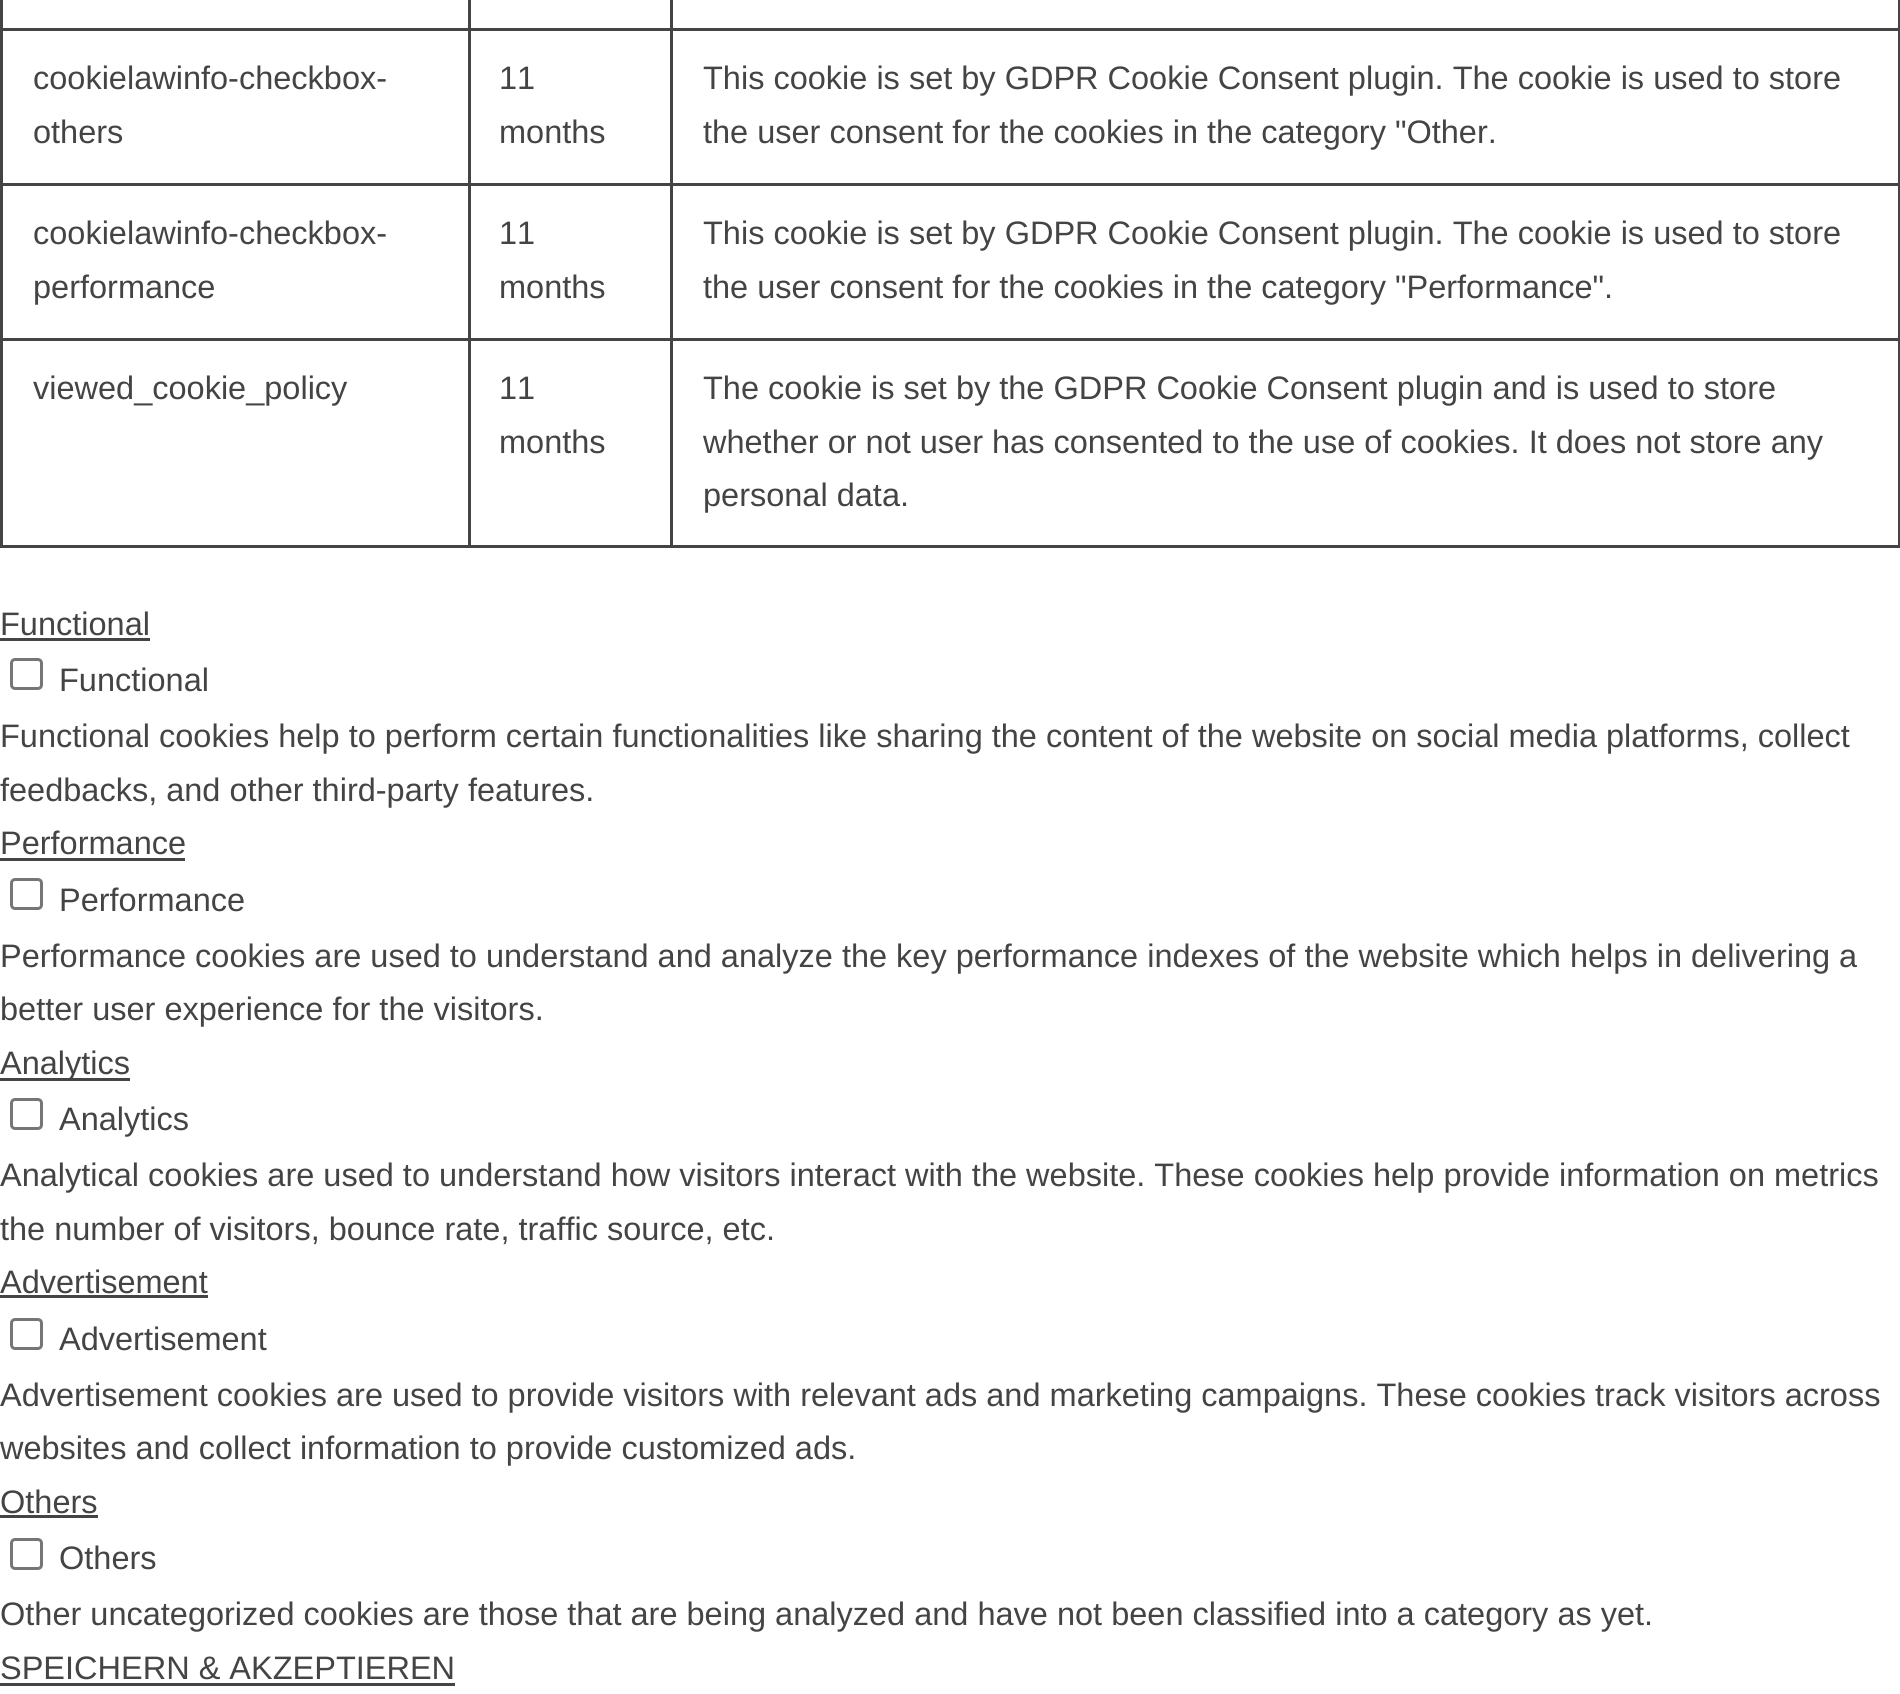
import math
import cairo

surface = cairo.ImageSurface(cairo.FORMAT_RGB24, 1900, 1694)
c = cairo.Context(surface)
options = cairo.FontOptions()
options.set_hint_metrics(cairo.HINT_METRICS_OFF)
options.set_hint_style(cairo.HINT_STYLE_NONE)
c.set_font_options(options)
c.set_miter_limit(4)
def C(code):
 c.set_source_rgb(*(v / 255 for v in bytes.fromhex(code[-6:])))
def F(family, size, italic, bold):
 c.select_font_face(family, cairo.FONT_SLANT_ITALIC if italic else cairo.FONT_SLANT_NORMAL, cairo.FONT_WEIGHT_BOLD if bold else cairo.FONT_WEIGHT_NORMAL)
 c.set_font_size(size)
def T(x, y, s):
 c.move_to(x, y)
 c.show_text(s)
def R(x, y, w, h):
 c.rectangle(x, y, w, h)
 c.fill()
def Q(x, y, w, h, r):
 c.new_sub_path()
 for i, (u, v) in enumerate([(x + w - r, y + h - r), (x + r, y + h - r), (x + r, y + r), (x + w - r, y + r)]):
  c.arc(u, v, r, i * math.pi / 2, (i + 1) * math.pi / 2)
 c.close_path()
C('ffffff')
c.paint()
C('444444')
R(1898,0,2,548)
R(670,545,1230,3)
R(670,338,3,210)
R(670,338,1230,3)
R(670,183,3,157)
R(670,183,1230,3)
R(670,28,3,157)
R(670,28,1230,3)
R(670,0,3,30)
R(468,545,205,3)
R(468,338,3,210)
R(468,338,205,3)
R(468,183,3,157)
R(468,183,205,3)
R(468,28,3,157)
R(468,28,205,3)
R(468,0,3,30)
R(0,545,470,3)
R(0,338,3,210)
R(0,338,470,3)
R(0,183,3,157)
R(0,183,470,3)
R(0,28,3,157)
R(0,28,470,3)
R(0,0,3,30)
F('Liberation Sans',32.5,0,0)
T(33,89,'cookielawinfo-checkbox-')
T(33,143,'others')
T(499,89,'11')
T(499,143,'months')
T(703,89,'This cookie is set by GDPR Cookie Consent plugin. The cookie is used to store')
T(703,143,'the user consent for the cookies in the category "Other.')
T(33,244,'cookielawinfo-checkbox-')
T(33,298,'performance')
T(499,244,'11')
T(499,298,'months')
T(703,244,'This cookie is set by GDPR Cookie Consent plugin. The cookie is used to store')
T(703,298,'the user consent for the cookies in the category "Performance".')
T(33,399,'viewed_cookie_policy')
T(499,399,'11')
T(499,453,'months')
T(703,399,'The cookie is set by the GDPR Cookie Consent plugin and is used to store')
T(703,453,'whether or not user has consented to the use of cookies. It does not store any')
T(703,506,'personal data.')
T(0,635,'Functional')
R(0,638,150,3)
Q(11.5,659.5,30,29,3.5)
C('767676')
c.set_line_width(3)
c.stroke()
C('444444')
T(59,691,'Functional')
T(0,747,'Functional cookies help to perform certain functionalities like sharing the content of the website on social media platforms, collect')
T(0,801,'feedbacks, and other third-party features.')
T(0,854,'Performance')
R(0,858,185,3)
Q(11.5,879.5,30,29,3.5)
C('767676')
c.stroke()
C('444444')
T(59,911,'Performance')
T(0,967,'Performance cookies are used to understand and analyze the key performance indexes of the website which helps in delivering a')
T(0,1020,'better user experience for the visitors.')
R(0,1078,130,3)
T(0,1074,'Analytics')
Q(11.5,1099.5,30,29,3.5)
C('767676')
c.stroke()
C('444444')
T(59,1130,'Analytics')
T(0,1186,'Analytical cookies are used to understand how visitors interact with the website. These cookies help provide information on metrics')
T(0,1240,'the number of visitors, bounce rate, traffic source, etc.')
T(0,1293,'Advertisement')
R(0,1295,208,3)
Q(11.5,1319.5,30,29,3.5)
C('767676')
c.stroke()
C('444444')
T(59,1350,'Advertisement')
T(0,1406,'Advertisement cookies are used to provide visitors with relevant ads and marketing campaigns. These cookies track visitors across')
T(0,1459,'websites and collect information to provide customized ads.')
T(0,1513,'Others')
R(0,1515,98,3)
Q(11.5,1539.5,30,29,3.5)
C('767676')
c.stroke()
C('444444')
T(59,1569,'Others')
T(0,1625,'Other uncategorized cookies are those that are being analyzed and have not been classified into a category as yet.')
T(0,1679,'SPEICHERN & AKZEPTIEREN')
R(0,1683,455,3)
surface.write_to_png('o.png')
